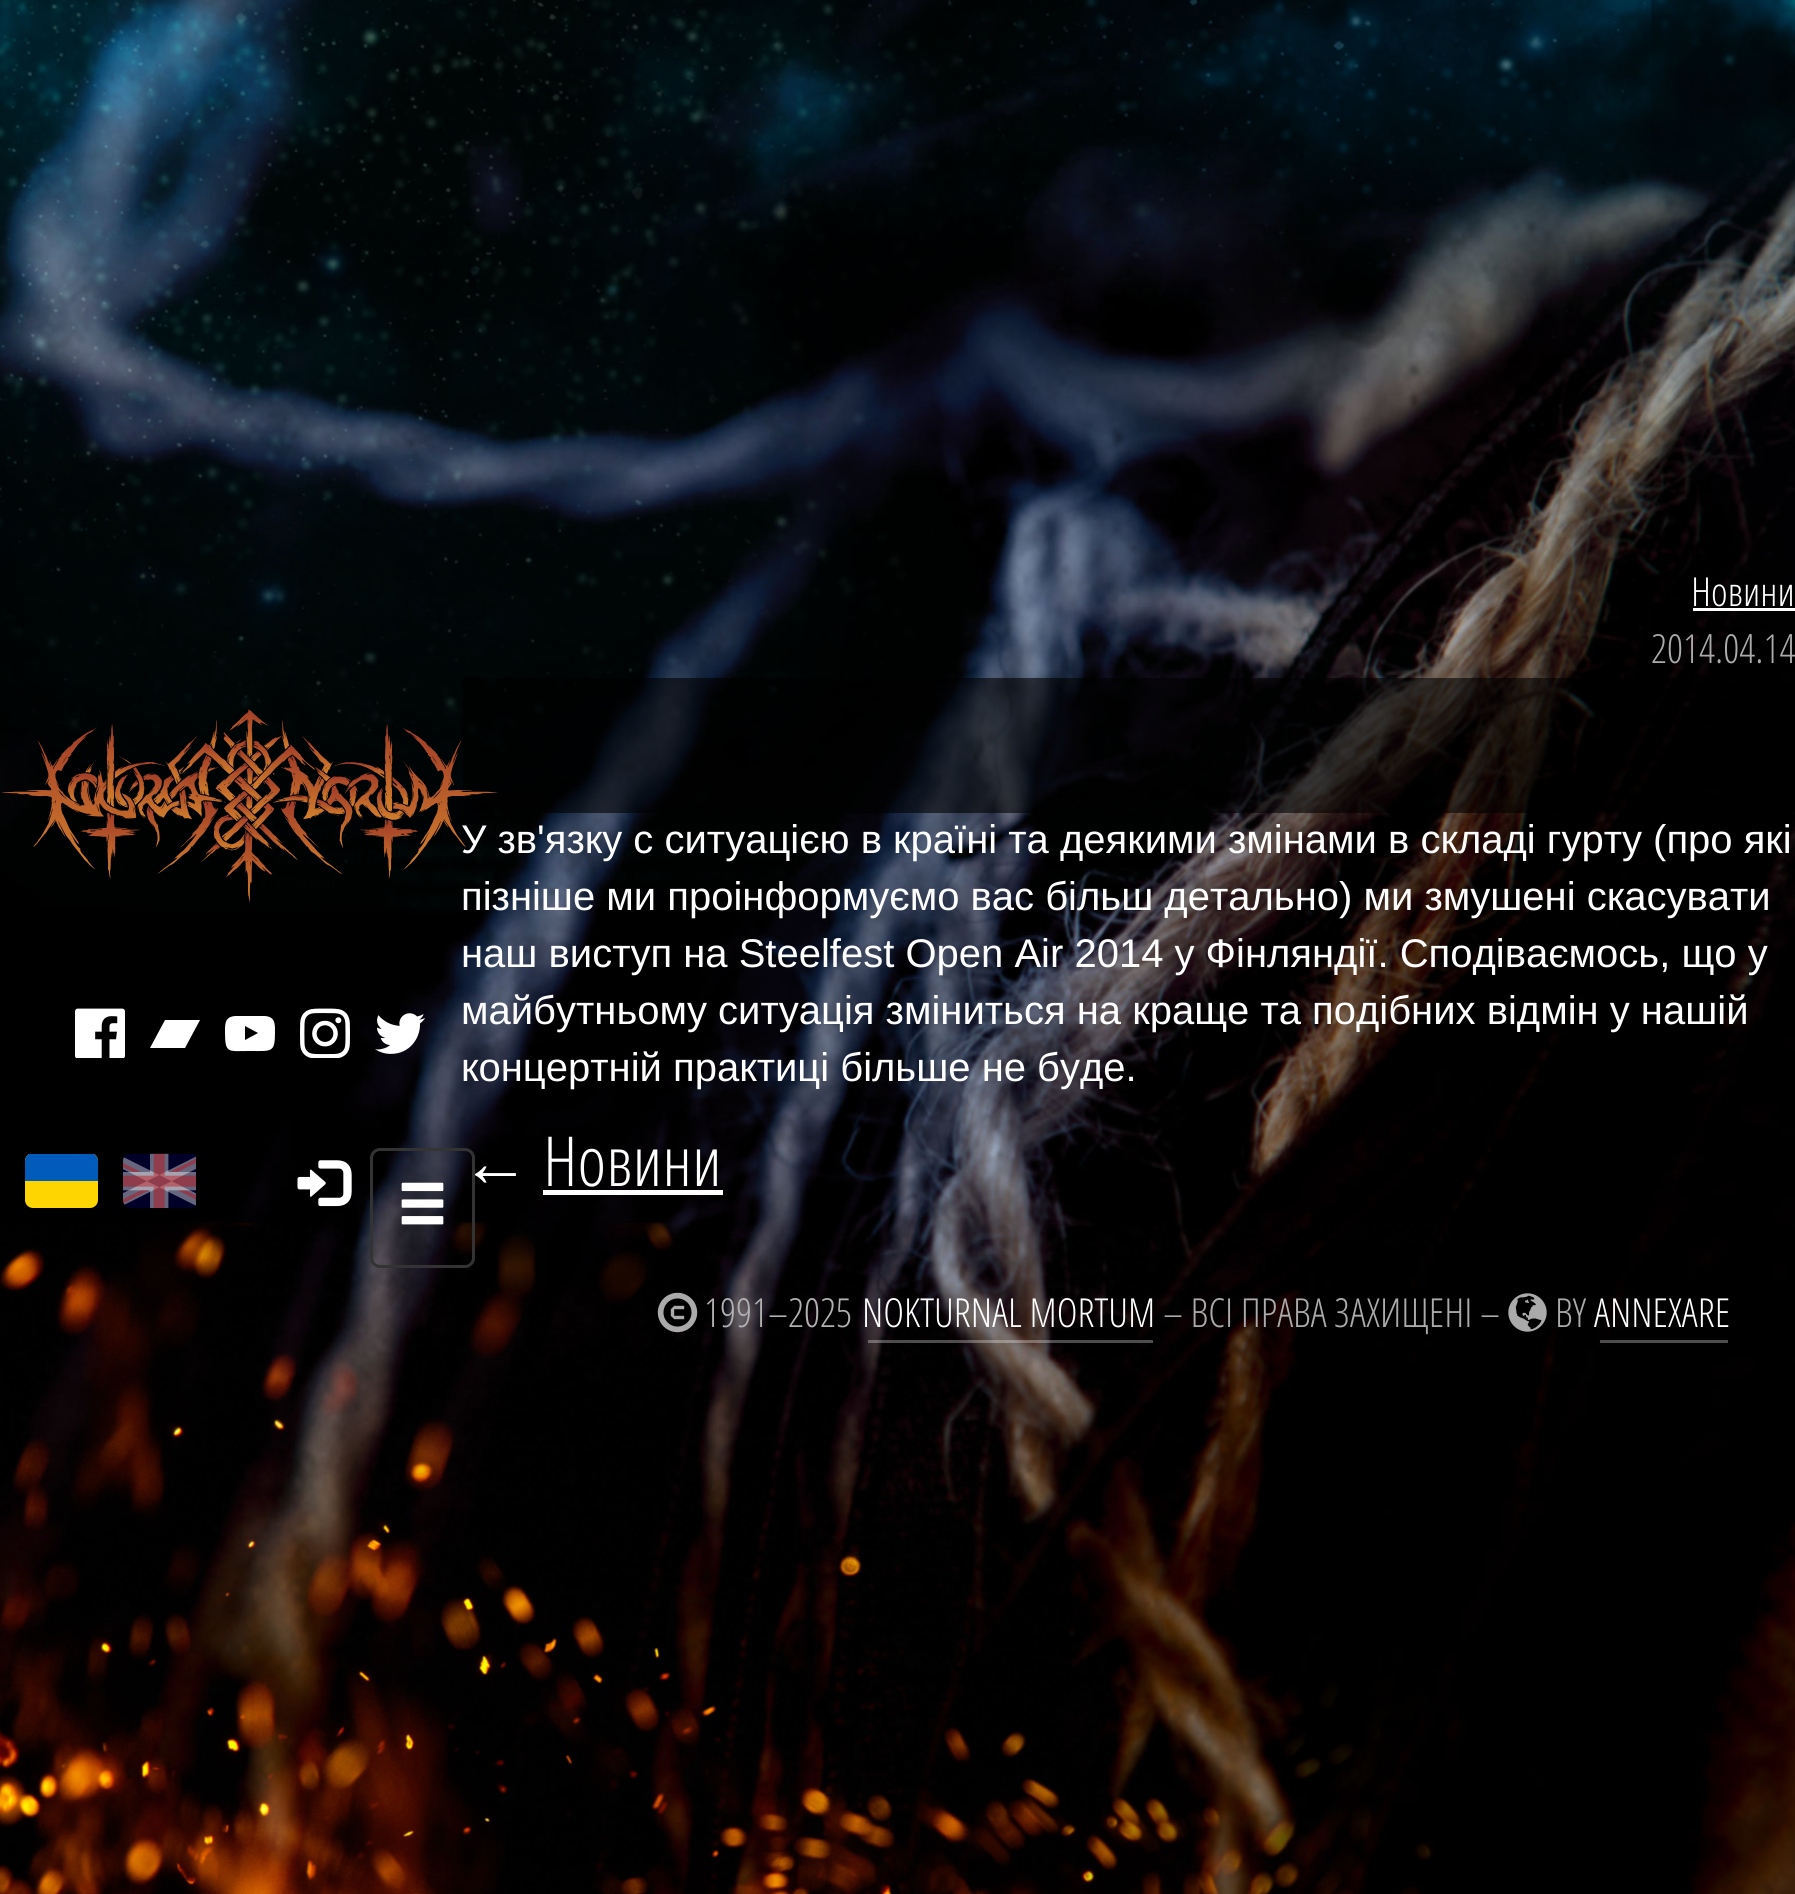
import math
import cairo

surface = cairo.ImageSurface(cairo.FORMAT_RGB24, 1795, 1894)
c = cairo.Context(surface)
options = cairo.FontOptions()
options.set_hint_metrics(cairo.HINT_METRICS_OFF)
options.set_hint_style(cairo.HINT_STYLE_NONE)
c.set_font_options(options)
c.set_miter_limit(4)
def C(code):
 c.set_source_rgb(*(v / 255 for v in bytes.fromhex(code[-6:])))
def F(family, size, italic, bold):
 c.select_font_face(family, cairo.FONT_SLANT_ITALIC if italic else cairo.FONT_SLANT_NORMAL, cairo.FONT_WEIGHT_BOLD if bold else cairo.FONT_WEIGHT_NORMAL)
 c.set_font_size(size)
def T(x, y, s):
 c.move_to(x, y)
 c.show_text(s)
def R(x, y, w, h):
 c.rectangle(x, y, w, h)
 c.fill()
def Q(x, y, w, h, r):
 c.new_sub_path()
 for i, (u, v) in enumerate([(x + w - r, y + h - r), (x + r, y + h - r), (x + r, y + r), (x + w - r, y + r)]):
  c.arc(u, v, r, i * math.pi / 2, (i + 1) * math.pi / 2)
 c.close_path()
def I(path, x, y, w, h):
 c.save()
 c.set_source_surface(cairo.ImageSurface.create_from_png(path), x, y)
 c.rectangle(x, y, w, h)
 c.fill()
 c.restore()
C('ffffff')
c.paint()
I('1.png',0,0,1795,1894)
c.set_source_rgba(0,0,0,0.6)
R(463,678,1241,135)
F('Liberation Sans',40,0,0)
C('ffffff')
T(461,853,'У зв\'язку с ситуацією в країні та деякими змінами в складі гурту (про які')
T(461,910,'пізніше ми проінформуємо вас більш детально) ми змушені скасувати')
I('2.png',1,709,497,194)
I('3.png',75,1008,50,50)
c.set_fill_rule(cairo.FILL_RULE_EVEN_ODD)
c.new_path()
c.move_to(150,1048)
c.line_to(165,1020)
c.line_to(200,1020)
c.line_to(185,1048)
c.close_path()
c.fill()
c.new_path()
c.move_to(225,1032)
c.curve_to(225,1023,225,1017,235,1016)
c.line_to(250,1016)
c.line_to(265,1016)
c.curve_to(275,1017,275,1023,275,1032)
c.curve_to(275,1053,272,1051,250,1051)
c.curve_to(228,1051,225,1054,225,1032)
c.close_path()
c.move_to(245,1040)
c.line_to(245,1026)
c.line_to(258,1033)
c.close_path()
c.fill()
I('4.png',300,1008,50,50)
I('5.png',375,1013,50,41)
c.save()
c.set_fill_rule(cairo.FILL_RULE_WINDING)
Q(25,1153,73,55,8)
c.clip()
C('ffd500')
c.new_path()
c.move_to(25,1154)
c.line_to(98,1154)
c.line_to(98,1200)
c.curve_to(98,1204.5,94.5,1208,90,1208)
c.line_to(33,1208)
c.curve_to(28.5,1208,25,1204.5,25,1200)
c.close_path()
c.fill()
C('005bbb')
R(25,1154,73,27)
c.restore()
I('6.png',123,1153,73,55)
I('7.png',297,1160,55,47)
Q(371.5,1149.5,102,117,8.5)
C('333333')
c.set_line_width(3)
c.stroke()
I('8.png',401,1182,43,43)
F('Open Sans Condensed Light',40,0,0)
C('ffffff')
T(1691,606,'Новини')
R(1693,608,102,3)
C('ababab')
T(1651,663,'2014.04.14')
F('Liberation Sans',40,0,0)
C('ffffff')
T(461,967,'наш виступ на Steelfest Open Air 2014 у Фінляндії. Сподіваємось, що у')
T(461,1024,'майбутньому ситуація зміниться на краще та подібних відмін у нашій')
T(461,1081,'концертній практиці більше не буде.')
F('Liberation Sans',69,0,0)
T(461,1186,'←')
F('Open Sans Condensed Light',69,0,0)
T(543,1186,'Новини')
R(543,1190,180,5)
I('9.png',657,1292,41,41)
F('Open Sans Condensed Light',40,0,0)
C('b2b1b2')
T(704,1327,'1991–2025')
C('ffffff')
T(862,1327,'NOKTURNAL MORTUM')
c.set_source_rgba(1,1,1,0.3)
R(868,1340,285,3)
C('ababab')
T(1163,1327,'– ВСІ ПРАВА ЗАХИЩЕНІ')
T(1480,1327,'–')
I('10.png',1508,1293,39,39)
T(1555,1327,'BY')
C('ffffff')
T(1594,1327,'ANNEXARE')
C('4d4d4d')
R(1600,1340,128,3)
surface.write_to_png('o.png')
